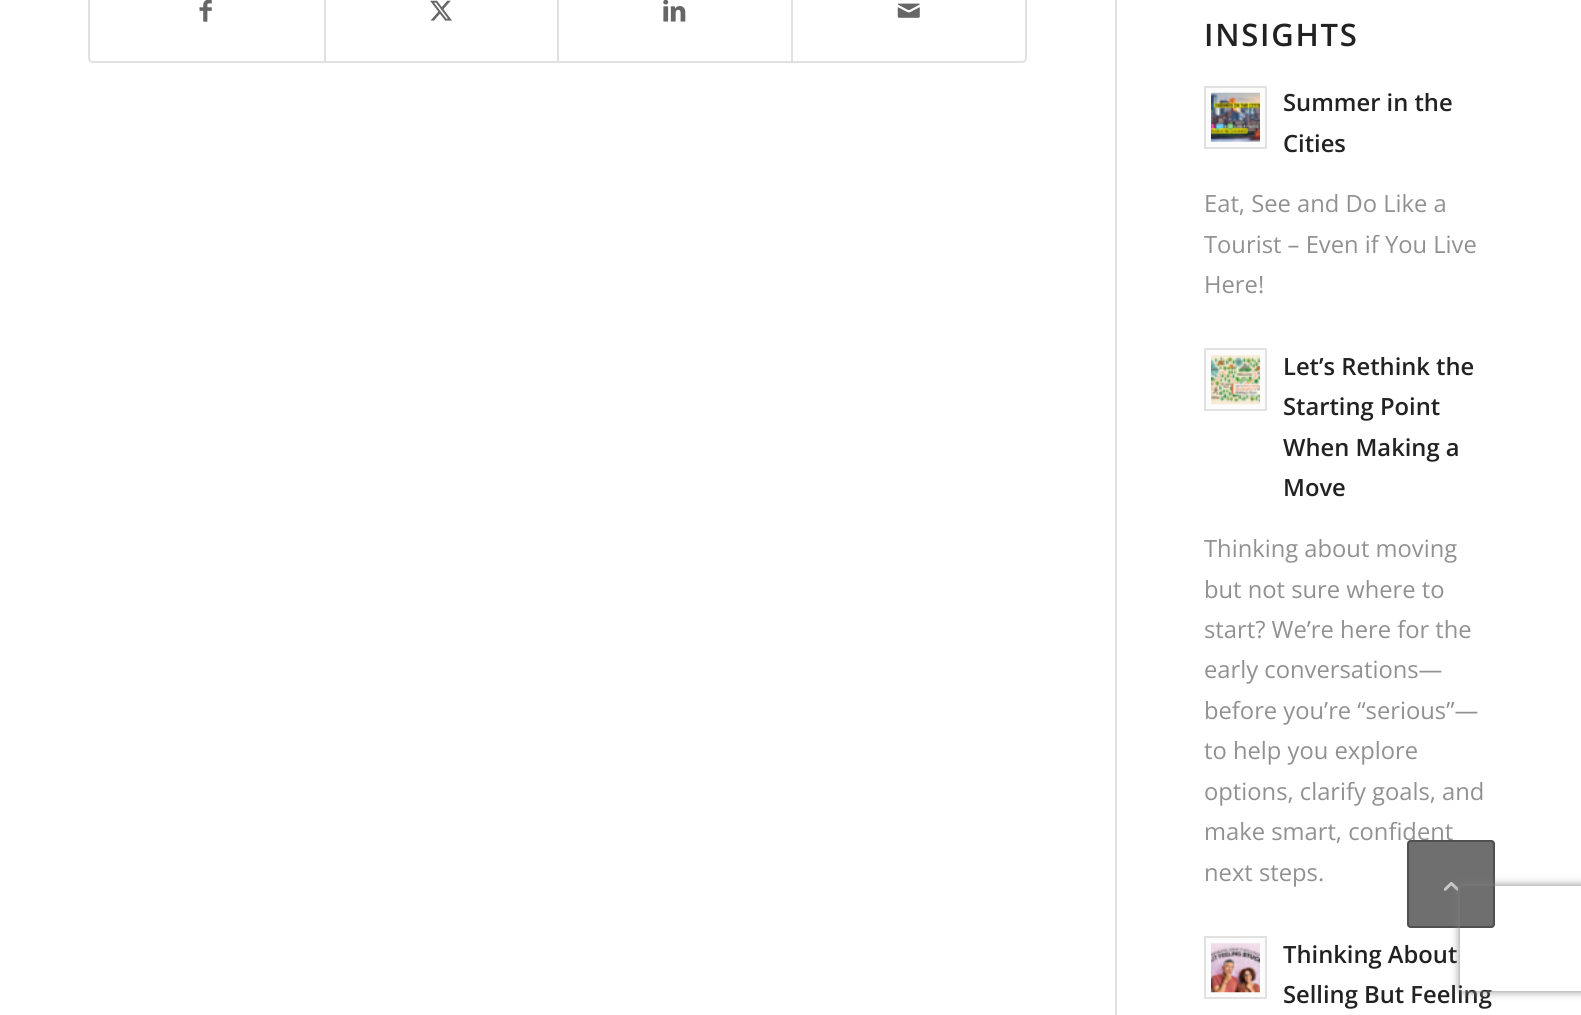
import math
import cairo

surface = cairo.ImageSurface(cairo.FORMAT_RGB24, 1581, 1015)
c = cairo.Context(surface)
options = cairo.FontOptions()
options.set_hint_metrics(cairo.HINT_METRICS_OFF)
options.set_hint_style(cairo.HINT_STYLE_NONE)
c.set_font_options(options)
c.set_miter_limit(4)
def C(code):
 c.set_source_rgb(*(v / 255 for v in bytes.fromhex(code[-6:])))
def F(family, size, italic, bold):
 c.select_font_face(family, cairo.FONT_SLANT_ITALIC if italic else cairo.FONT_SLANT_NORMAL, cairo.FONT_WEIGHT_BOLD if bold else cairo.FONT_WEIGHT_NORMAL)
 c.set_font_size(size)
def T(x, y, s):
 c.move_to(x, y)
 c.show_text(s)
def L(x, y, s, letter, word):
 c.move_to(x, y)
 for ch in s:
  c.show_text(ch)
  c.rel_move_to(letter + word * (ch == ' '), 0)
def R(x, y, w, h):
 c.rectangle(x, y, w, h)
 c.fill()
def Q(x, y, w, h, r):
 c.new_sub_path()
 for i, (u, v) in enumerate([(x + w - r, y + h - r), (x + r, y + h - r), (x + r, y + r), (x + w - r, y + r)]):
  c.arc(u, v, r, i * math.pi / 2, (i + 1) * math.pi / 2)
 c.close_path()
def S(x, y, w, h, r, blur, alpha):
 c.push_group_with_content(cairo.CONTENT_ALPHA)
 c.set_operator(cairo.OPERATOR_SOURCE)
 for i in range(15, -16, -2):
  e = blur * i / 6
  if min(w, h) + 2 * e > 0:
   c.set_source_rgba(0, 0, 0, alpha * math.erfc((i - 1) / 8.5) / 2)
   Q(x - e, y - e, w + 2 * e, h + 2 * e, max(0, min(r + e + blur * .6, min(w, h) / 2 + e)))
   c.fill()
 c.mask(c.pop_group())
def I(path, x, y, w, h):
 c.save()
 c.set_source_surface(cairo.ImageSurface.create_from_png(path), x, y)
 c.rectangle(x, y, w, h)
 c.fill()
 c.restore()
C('ffffff')
c.paint()
Q(89,-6,937,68,4)
C('e1e1e1')
c.stroke()
I('1.png',199,0,13,22)
R(324,0,2,61)
I('2.png',430,0,22,21)
R(557,0,2,61)
I('3.png',663,0,23,22)
R(791,0,2,61)
I('4.png',897,3,23,15)
R(1115,0,2,1015)
F('Open Sans SemiBold',31,0,0)
C('222222')
L(1204,46,'INSIGHTS',1.75,0)
C('fcfcfc')
c.rectangle(1205,87,61,61)
c.fill_preserve()
C('e1e1e1')
c.stroke()
I('5.png',1211,92,49,50)
F('Open Sans SemiBold',23.75,0,0)
C('222222')
T(1283,111,'Summer in the')
T(1283,152,'Cities')
F('Open Sans',23.75,0,0)
C('919191')
T(1204,212,'Eat, See and Do Like a')
T(1204,253,'Tourist – Even if You Live')
T(1204,293,'Here!')
C('fcfcfc')
c.rectangle(1205,349,61,61)
c.fill_preserve()
C('e1e1e1')
c.stroke()
I('6.png',1211,355,49,50)
F('Open Sans SemiBold',23.75,0,0)
C('222222')
T(1283,375,'Let’s Rethink the')
T(1283,415,'Starting Point')
T(1283,456,'When Making a')
T(1283,496,'Move')
F('Open Sans',23.75,0,0)
C('919191')
T(1204,557,'Thinking about moving')
T(1204,598,'but not sure where to')
T(1204,638,'start? We’re here for the')
T(1204,678,'early conversations—')
T(1204,719,'before you’re “serious”—')
T(1204,759,'to help you explore')
T(1204,800,'options, clarify goals, and')
T(1204,840,'make smart, confident')
T(1204,881,'next steps.')
C('fcfcfc')
c.rectangle(1205,937,61,61)
c.fill_preserve()
C('e1e1e1')
c.stroke()
I('7.png',1211,943,49,50)
F('Open Sans SemiBold',23.75,0,0)
C('222222')
T(1283,963,'Thinking About')
T(1283,1003,'Selling But Feeling')
c.set_source_rgba(0.2,0.2,0.2,0.7)
Q(1407,840,88,88,4)
c.fill()
Q(1408,841,86,86,3)
c.set_source_rgba(0.267,0.267,0.267,0.7)
c.stroke()
I('8.png',1444,882,14,9)
c.save()
c.set_fill_rule(cairo.FILL_RULE_EVEN_ODD)
c.new_path()
c.move_to(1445,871)
c.line_to(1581,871)
c.line_to(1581,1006)
c.line_to(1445,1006)
c.close_path()
c.move_to(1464,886)
c.line_to(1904,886)
c.curve_to(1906,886,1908,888,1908,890)
c.line_to(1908,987)
c.curve_to(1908,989,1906,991,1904,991)
c.line_to(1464,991)
c.curve_to(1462,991,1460,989,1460,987)
c.line_to(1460,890)
c.curve_to(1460,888,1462,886,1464,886)
c.close_path()
c.clip()
C('808080')
S(1460,886,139,105,4,4.5,1)
c.restore()
surface.write_to_png('o.png')
